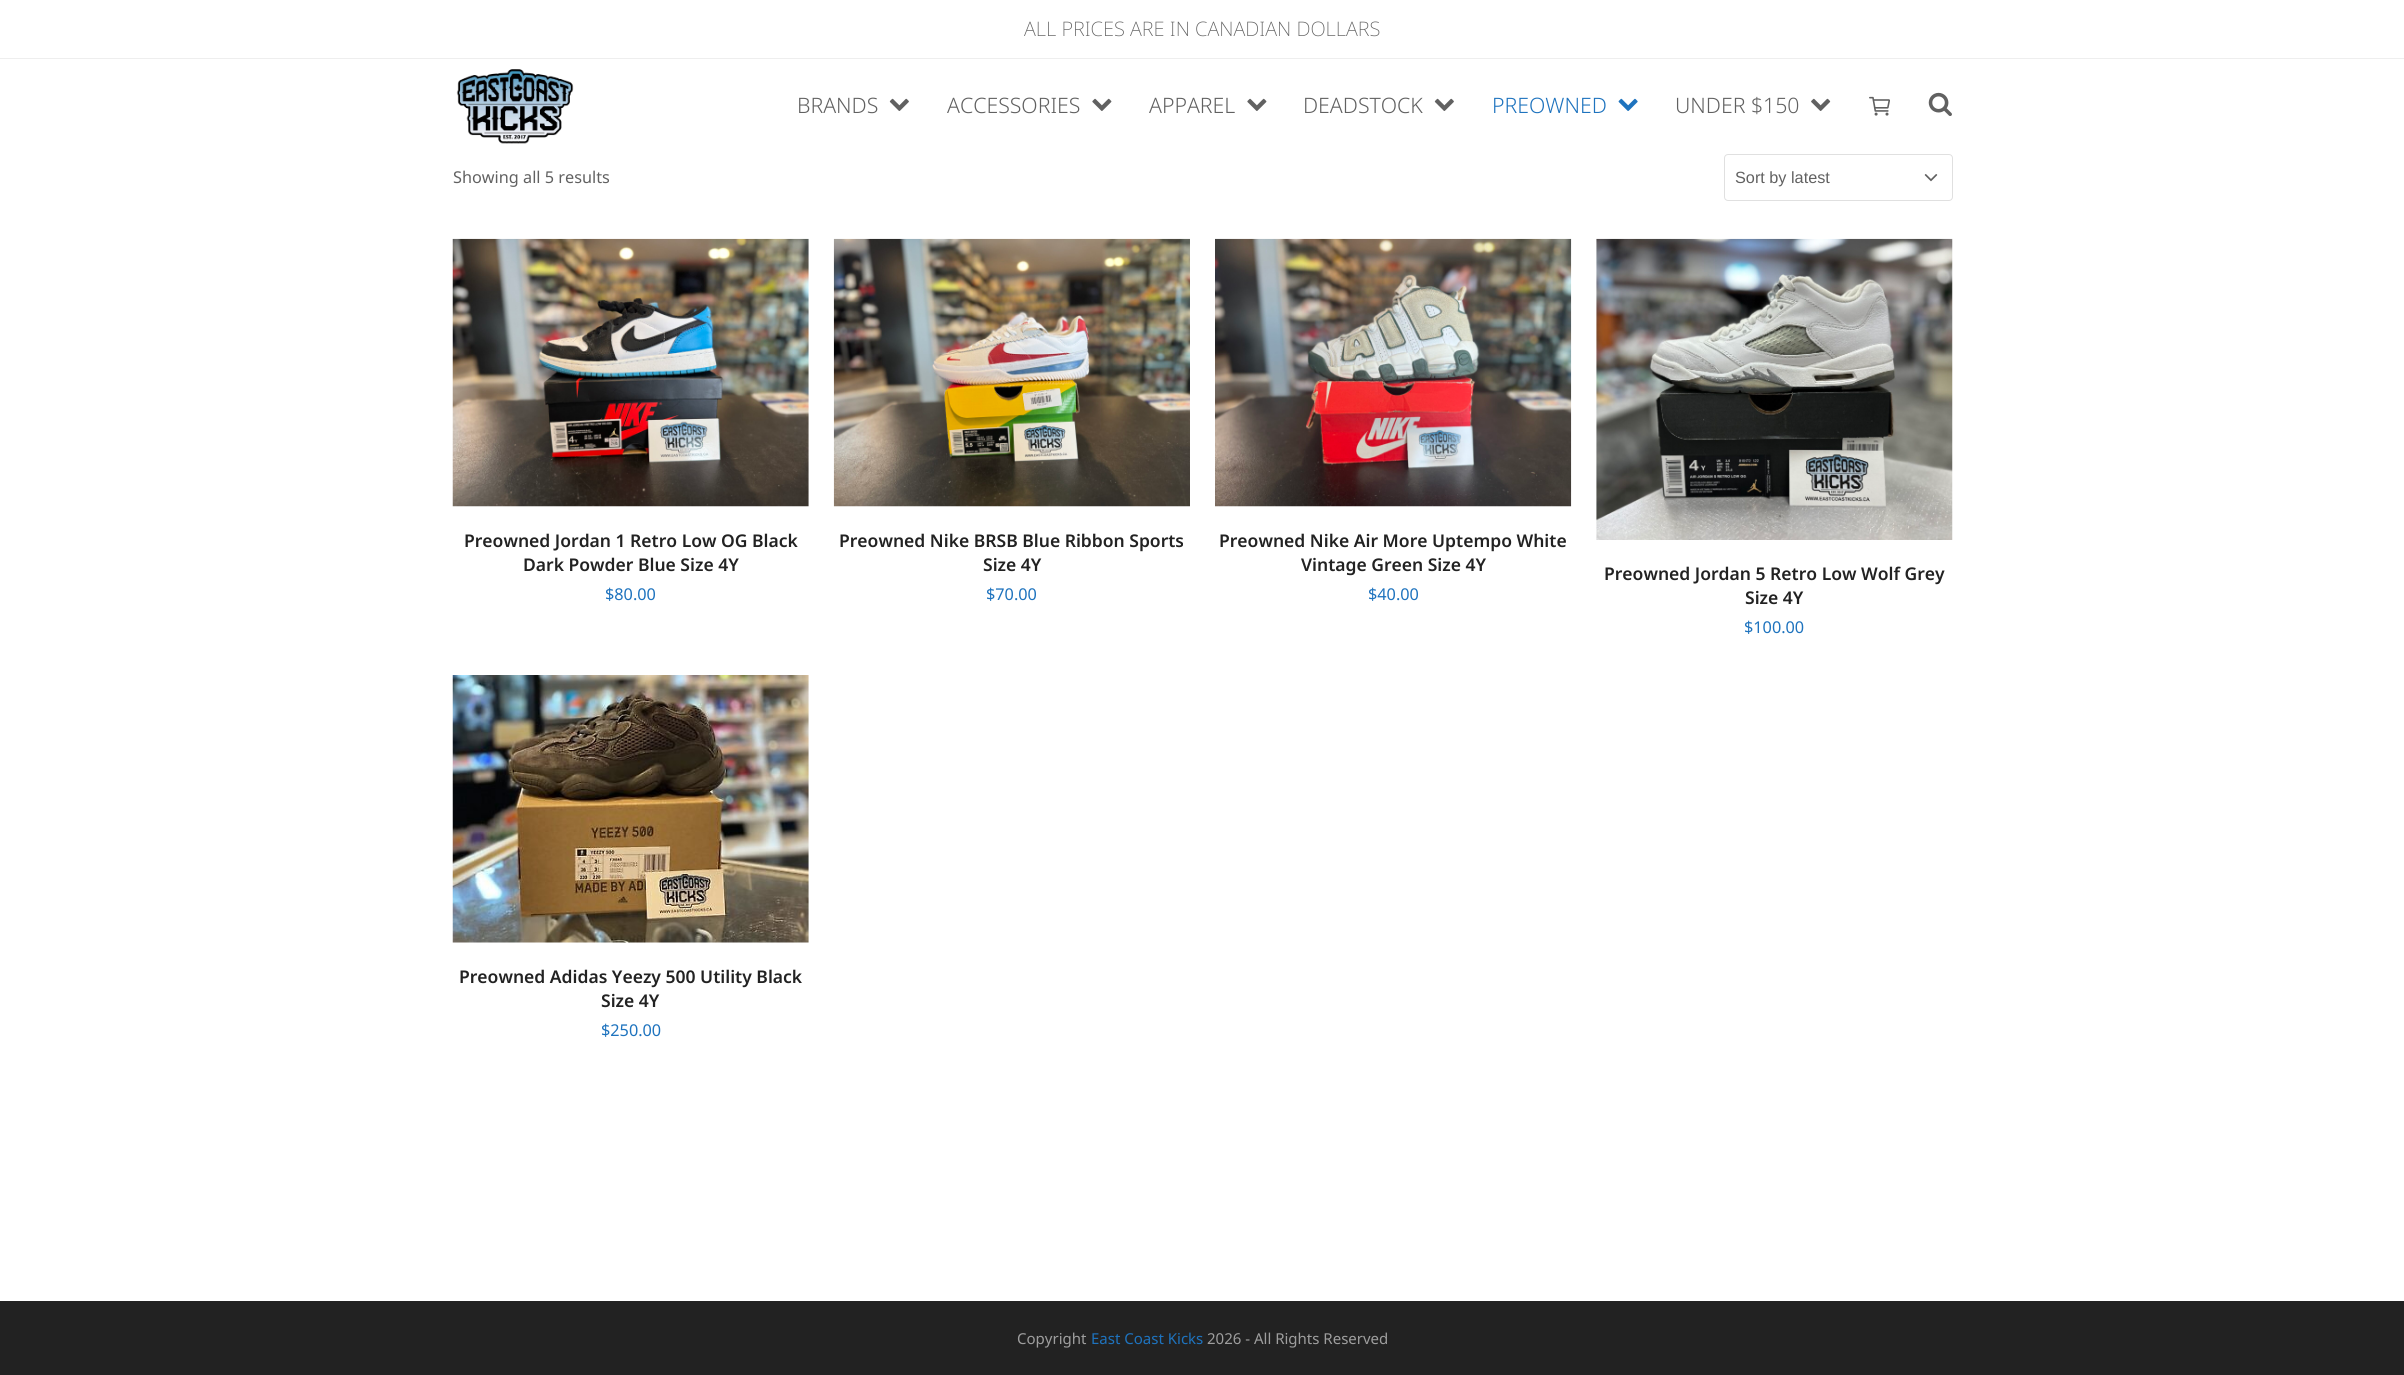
import math
import cairo

surface = cairo.ImageSurface(cairo.FORMAT_RGB24, 2404, 1375)
c = cairo.Context(surface)
options = cairo.FontOptions()
options.set_hint_metrics(cairo.HINT_METRICS_OFF)
options.set_hint_style(cairo.HINT_STYLE_NONE)
c.set_font_options(options)
c.set_miter_limit(4)
def C(code):
 c.set_source_rgb(*(v / 255 for v in bytes.fromhex(code[-6:])))
def F(family, size, italic, bold):
 c.select_font_face(family, cairo.FONT_SLANT_ITALIC if italic else cairo.FONT_SLANT_NORMAL, cairo.FONT_WEIGHT_BOLD if bold else cairo.FONT_WEIGHT_NORMAL)
 c.set_font_size(size)
def T(x, y, s):
 c.move_to(x, y)
 c.show_text(s)
def R(x, y, w, h):
 c.rectangle(x, y, w, h)
 c.fill()
def Q(x, y, w, h, r):
 c.new_sub_path()
 for i, (u, v) in enumerate([(x + w - r, y + h - r), (x + r, y + h - r), (x + r, y + r), (x + w - r, y + r)]):
  c.arc(u, v, r, i * math.pi / 2, (i + 1) * math.pi / 2)
 c.close_path()
def I(path, x, y, w, h):
 c.save()
 c.set_source_surface(cairo.ImageSurface.create_from_png(path), x, y)
 c.rectangle(x, y, w, h)
 c.fill()
 c.restore()
C('ffffff')
c.paint()
C('eeeeee')
R(0,58,2404,1)
F('Noto Sans ExtraLight',20,0,0)
C('616161')
T(1024,36,'ALL PRICES ARE IN CANADIAN DOLLARS')
I('1.png',456,69,118,75)
F('Noto Sans Light',21.25,0,0)
T(797,113,'BRANDS')
I('2.png',889,98,20,13)
T(947,113,'ACCESSORIES')
I('3.png',1092,98,20,13)
T(1149,113,'APPAREL')
I('3.png',1247,98,20,13)
T(1303,113,'DEADSTOCK')
I('2.png',1434,98,20,13)
C('1e73be')
T(1492,113,'PREOWNED')
I('4.png',1618,98,20,13)
C('616161')
T(1675,113,'UNDER $150')
I('5.png',1811,98,20,13)
I('6.png',1869,96,21,20)
I('7.png',1928,92,24,24)
F('Noto Sans',16.25,0,0)
T(453,183,'Showing all 5 results')
Q(1724.5,154.5,228,46,3.5)
C('e0e0e0')
c.set_line_width(1)
c.stroke()
F('Liberation Sans',16.25,0,0)
C('616161')
T(1735,183,'Sort by latest')
I('8.png',1924,174,14,8)
I('9.png',452,238,357,269)
F('Noto Sans SemiBold',17.5,0,0)
C('222222')
T(464,547,'Preowned Jordan 1 Retro Low OG Black')
T(523,571,'Dark Powder Blue Size 4Y')
F('Noto Sans',16.25,0,0)
C('1e73be')
T(605,600,'$80.00')
I('10.png',833,238,357,269)
F('Noto Sans SemiBold',17.5,0,0)
C('222222')
T(839,547,'Preowned Nike BRSB Blue Ribbon Sports')
T(983,571,'Size 4Y')
F('Noto Sans',16.25,0,0)
C('1e73be')
T(986,600,'$70.00')
I('11.png',1215,238,357,269)
F('Noto Sans SemiBold',17.5,0,0)
C('222222')
T(1219,547,'Preowned Nike Air More Uptempo White')
T(1301,571,'Vintage Green Size 4Y')
F('Noto Sans',16.25,0,0)
C('1e73be')
T(1368,600,'$40.00')
I('12.png',1596,238,357,302)
F('Noto Sans SemiBold',17.5,0,0)
C('222222')
T(1604,580,'Preowned Jordan 5 Retro Low Wolf Grey')
T(1745,604,'Size 4Y')
F('Noto Sans',16.25,0,0)
C('1e73be')
T(1744,633,'$100.00')
I('13.png',452,675,357,268)
F('Noto Sans SemiBold',17.5,0,0)
C('222222')
T(459,983,'Preowned Adidas Yeezy 500 Utility Black')
T(601,1007,'Size 4Y')
F('Noto Sans',16.25,0,0)
C('1e73be')
T(601,1036,'$250.00')
C('222222')
R(0,1301,2404,74)
F('Noto Sans',15,0,0)
C('9e9e9e')
T(1017,1344,'Copyright')
C('1e73be')
T(1091,1344,'East Coast Kicks')
C('9e9e9e')
T(1207,1344,'2026 - All Rights Reserved')
surface.write_to_png('o.png')
